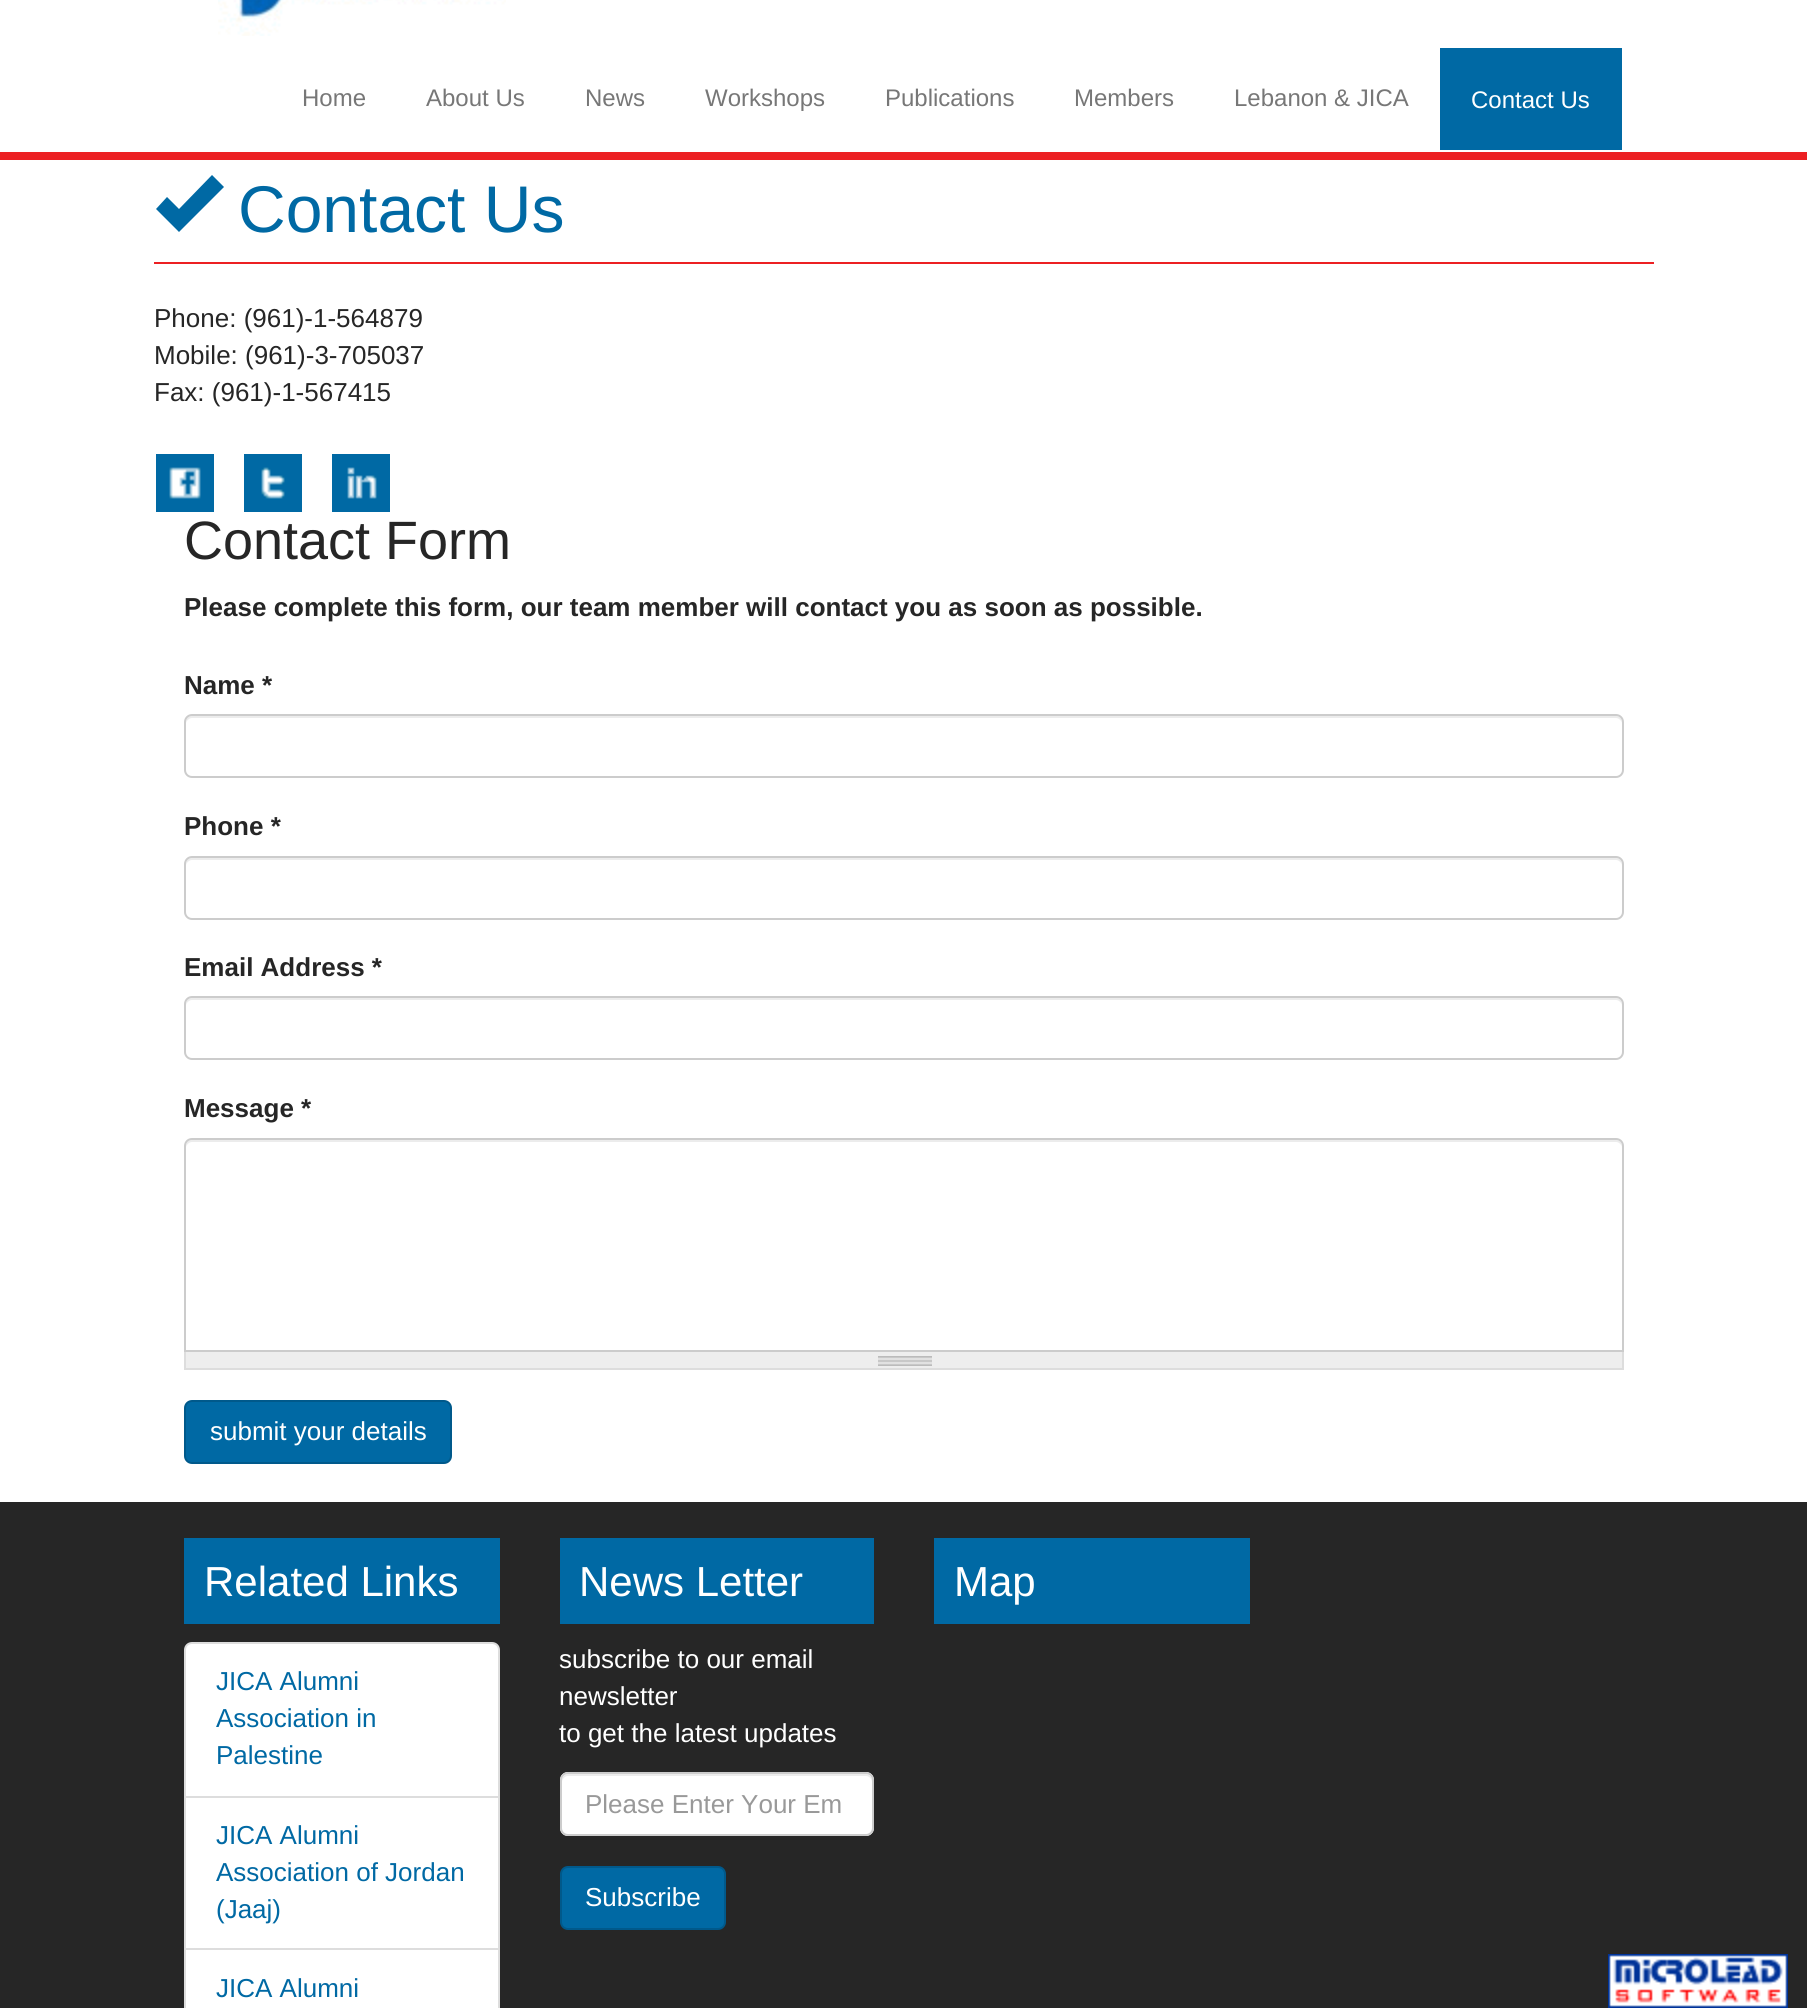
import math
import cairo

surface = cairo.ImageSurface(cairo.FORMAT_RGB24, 1807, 2008)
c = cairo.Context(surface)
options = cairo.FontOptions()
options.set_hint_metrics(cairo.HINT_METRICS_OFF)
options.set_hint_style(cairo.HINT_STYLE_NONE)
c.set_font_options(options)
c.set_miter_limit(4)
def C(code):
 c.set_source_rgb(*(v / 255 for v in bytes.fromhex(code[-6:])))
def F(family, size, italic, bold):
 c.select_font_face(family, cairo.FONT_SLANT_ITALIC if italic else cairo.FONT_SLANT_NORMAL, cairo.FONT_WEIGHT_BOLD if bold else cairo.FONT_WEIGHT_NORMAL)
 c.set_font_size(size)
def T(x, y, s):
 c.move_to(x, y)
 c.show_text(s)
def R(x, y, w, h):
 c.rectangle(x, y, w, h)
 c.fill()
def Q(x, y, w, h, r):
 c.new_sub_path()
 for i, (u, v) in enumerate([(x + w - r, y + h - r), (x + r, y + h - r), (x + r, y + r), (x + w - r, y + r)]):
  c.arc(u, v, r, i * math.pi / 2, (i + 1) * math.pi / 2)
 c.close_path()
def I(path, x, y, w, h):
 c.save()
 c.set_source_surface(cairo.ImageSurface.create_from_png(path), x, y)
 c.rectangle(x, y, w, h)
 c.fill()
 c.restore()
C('ffffff')
c.paint()
C('ec2023')
R(0,152,1807,8)
I('1.png',218,0,288,36)
F('Liberation Sans',24,0,0)
C('777777')
T(302,106,'Home')
T(426,106,'About Us')
T(585,106,'News')
T(705,106,'Workshops')
T(885,106,'Publications')
T(1074,106,'Members')
T(1234,106,'Lebanon & JICA')
C('0069a4')
R(1440,48,182,102)
C('ffffff')
T(1471,108,'Contact Us')
C('ec2023')
R(154,262,1500,2)
C('0069a4')
c.new_path()
c.move_to(179,232)
c.line_to(224,187)
c.line_to(212,175)
c.line_to(179,209)
c.line_to(167,197)
c.line_to(156,209)
c.close_path()
c.fill()
F('Liberation Sans',66,0,0)
T(238,232,'Contact Us')
F('Liberation Sans',26,0,0)
C('262626')
T(154,327,'Phone: (961)-1-564879')
T(154,364,'Mobile: (961)-3-705037')
T(154,401,'Fax: (961)-1-567415')
I('2.png',156,454,58,58)
I('3.png',244,454,58,58)
I('4.png',332,454,58,58)
F('Liberation Sans',54,0,0)
T(184,559,'Contact Form')
F('Liberation Sans',26,0,1)
T(184,616,'Please complete this form, our team member will contact you as soon as possible.')
T(184,694,'Name *')
C('ececec')
c.new_path()
c.move_to(192,718)
c.line_to(1616,718)
c.curve_to(1619,718,1622,721,1622,724)
c.curve_to(1622,720,1621,716,1616,716)
c.line_to(192,716)
c.curve_to(187,716,186,720,186,724)
c.curve_to(186,721,189,718,192,718)
c.close_path()
c.fill()
Q(185,715,1438,62,7)
C('cccccc')
c.stroke()
C('262626')
T(184,835,'Phone *')
C('ececec')
c.new_path()
c.move_to(192,860)
c.line_to(1616,860)
c.curve_to(1619,860,1622,863,1622,866)
c.curve_to(1622,862,1621,858,1616,858)
c.line_to(192,858)
c.curve_to(187,858,186,862,186,866)
c.curve_to(186,863,189,860,192,860)
c.close_path()
c.fill()
Q(185,857,1438,62,7)
C('cccccc')
c.stroke()
C('262626')
T(184,976,'Email Address *')
C('ececec')
c.new_path()
c.move_to(192,1000)
c.line_to(1616,1000)
c.curve_to(1619,1000,1622,1003,1622,1006)
c.curve_to(1622,1002,1621,998,1616,998)
c.line_to(192,998)
c.curve_to(187,998,186,1002,186,1006)
c.curve_to(186,1003,189,1000,192,1000)
c.close_path()
c.fill()
Q(185,997,1438,62,7)
C('cccccc')
c.stroke()
C('262626')
T(184,1117,'Message *')
C('ececec')
c.new_path()
c.move_to(192,1142)
c.line_to(1616,1142)
c.curve_to(1619,1142,1622,1145,1622,1148)
c.curve_to(1622,1144,1621,1140,1616,1140)
c.line_to(192,1140)
c.curve_to(187,1140,186,1144,186,1148)
c.curve_to(186,1145,189,1142,192,1142)
c.close_path()
c.fill()
c.new_path()
c.move_to(192,1139)
c.line_to(1616,1139)
c.curve_to(1620,1139,1623,1142,1623,1146)
c.line_to(1623,1351)
c.line_to(185,1351)
c.line_to(185,1146)
c.curve_to(185,1142,188,1139,192,1139)
c.close_path()
C('cccccc')
c.stroke()
C('eeeeee')
R(186,1352,1436,16)
I('5.png',878,1356,54,10)
C('dddddd')
R(1622,1352,2,18)
R(184,1368,1440,2)
R(184,1352,2,18)
C('0069a4')
Q(185,1401,266,62,7)
c.fill_preserve()
C('00598b')
c.stroke()
F('Liberation Sans',26,0,0)
C('ffffff')
T(210,1440,'submit your details')
C('262626')
R(0,1502,1807,506)
C('0069a4')
R(184,1538,316,86)
F('Liberation Sans',42,0,0)
C('ffffff')
T(204,1596,'Related Links')
c.new_path()
c.move_to(192,1643)
c.line_to(492,1643)
c.curve_to(496,1643,499,1646,499,1650)
c.line_to(499,1797)
c.line_to(185,1797)
c.line_to(185,1650)
c.curve_to(185,1646,188,1643,192,1643)
c.close_path()
c.fill_preserve()
C('dddddd')
c.stroke()
F('Liberation Sans',26,0,0)
C('0069a4')
T(216,1690,'JICA Alumni')
T(216,1727,'Association in')
T(216,1764,'Palestine')
C('ffffff')
c.rectangle(185,1797,314,152)
c.fill_preserve()
C('dddddd')
c.stroke()
C('0069a4')
T(216,1844,'JICA Alumni')
T(216,1881,'Association of Jordan')
T(216,1918,'(Jaaj)')
C('ffffff')
c.rectangle(185,1949,314,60)
c.fill_preserve()
C('dddddd')
c.stroke()
C('0069a4')
T(216,1997,'JICA Alumni')
R(560,1538,314,86)
F('Liberation Sans',42,0,0)
C('ffffff')
T(579,1596,'News Letter')
F('Liberation Sans',26,0,0)
T(559,1668,'subscribe to our email')
T(559,1705,'newsletter')
T(559,1742,'to get the latest updates')
Q(560,1772,314,64,8)
c.fill()
C('ececec')
c.new_path()
c.move_to(568,1776)
c.line_to(866,1776)
c.curve_to(869,1776,872,1779,872,1782)
c.line_to(872,1780)
c.curve_to(872,1777,869,1774,866,1774)
c.line_to(568,1774)
c.curve_to(565,1774,562,1777,562,1780)
c.line_to(562,1782)
c.curve_to(562,1779,565,1776,568,1776)
c.close_path()
c.fill()
Q(561,1773,312,62,7)
C('cccccc')
c.stroke()
C('999999')
T(585,1813,'Please Enter Your Em')
C('0069a4')
Q(561,1867,164,62,7)
c.fill_preserve()
C('00598b')
c.stroke()
C('ffffff')
T(585,1906,'Subscribe')
C('0069a4')
R(934,1538,316,86)
F('Liberation Sans',42,0,0)
C('ffffff')
T(954,1596,'Map')
I('6.png',1608,1954,180,54)
surface.write_to_png('o.png')
